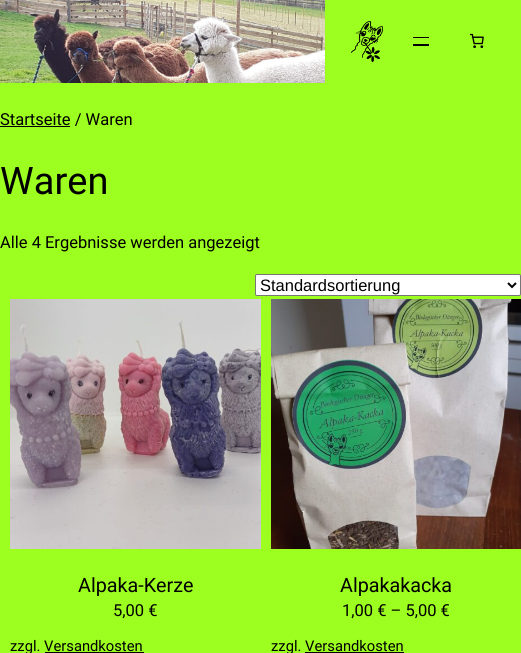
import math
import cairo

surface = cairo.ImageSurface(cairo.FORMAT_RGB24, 521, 653)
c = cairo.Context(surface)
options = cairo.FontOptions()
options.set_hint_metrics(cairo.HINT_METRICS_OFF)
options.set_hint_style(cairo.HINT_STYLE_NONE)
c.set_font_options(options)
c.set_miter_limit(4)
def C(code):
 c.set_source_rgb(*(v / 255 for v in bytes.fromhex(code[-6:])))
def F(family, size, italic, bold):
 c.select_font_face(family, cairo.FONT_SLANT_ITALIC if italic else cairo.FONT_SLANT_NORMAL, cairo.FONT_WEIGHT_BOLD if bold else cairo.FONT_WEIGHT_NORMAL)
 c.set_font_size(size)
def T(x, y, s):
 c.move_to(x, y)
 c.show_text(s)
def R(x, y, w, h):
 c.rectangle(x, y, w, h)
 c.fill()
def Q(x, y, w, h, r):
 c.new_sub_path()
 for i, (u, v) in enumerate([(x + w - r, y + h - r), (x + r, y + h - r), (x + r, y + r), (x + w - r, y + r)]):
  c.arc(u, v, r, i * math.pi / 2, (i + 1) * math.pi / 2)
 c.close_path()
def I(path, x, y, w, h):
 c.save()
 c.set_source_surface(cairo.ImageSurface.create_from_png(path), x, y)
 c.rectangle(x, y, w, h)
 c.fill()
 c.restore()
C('9dff20')
c.paint()
I('1.png',0,0,325,83)
I('2.png',351,21,32,41)
C('000000')
R(413,37,16,1)
R(413,44,16,2)
I('3.png',469,33,15,16)
F('Roboto',16.5,0,0)
T(0,125,'Startseite / Waren')
R(0,126,70,1)
F('Roboto',38,0,0)
T(0,194,'Waren')
F('Roboto',16.5,0,0)
T(0,248,'Alle 4 Ergebnisse werden angezeigt')
C('ffffff')
Q(255.5,274.5,265,21,1.5)
c.fill_preserve()
C('767676')
c.set_line_width(1)
c.stroke()
c.new_path()
c.move_to(508,283)
c.line_to(512,287)
c.line_to(516,283)
C('000000')
c.set_line_width(2)
c.stroke()
F('Liberation Sans',16.5,0,0)
T(260,291,'Standardsortierung')
I('4.png',10,299,251,250)
F('Roboto',19.75,0,0)
T(78,592,'Alpaka-Kerze')
F('Roboto',16.5,0,0)
T(113,616,'5,00 €')
F('Roboto',14.75,0,0)
T(10,651,'zzgl. Versandkosten')
R(45,652,99,1)
I('5.png',271,299,250,250)
F('Roboto',19.75,0,0)
T(340,592,'Alpakakacka')
F('Roboto',16.5,0,0)
T(342,616,'1,00 € – 5,00 €')
F('Roboto',14.75,0,0)
T(271,651,'zzgl. Versandkosten')
R(305,652,99,1)
surface.write_to_png('o.png')
